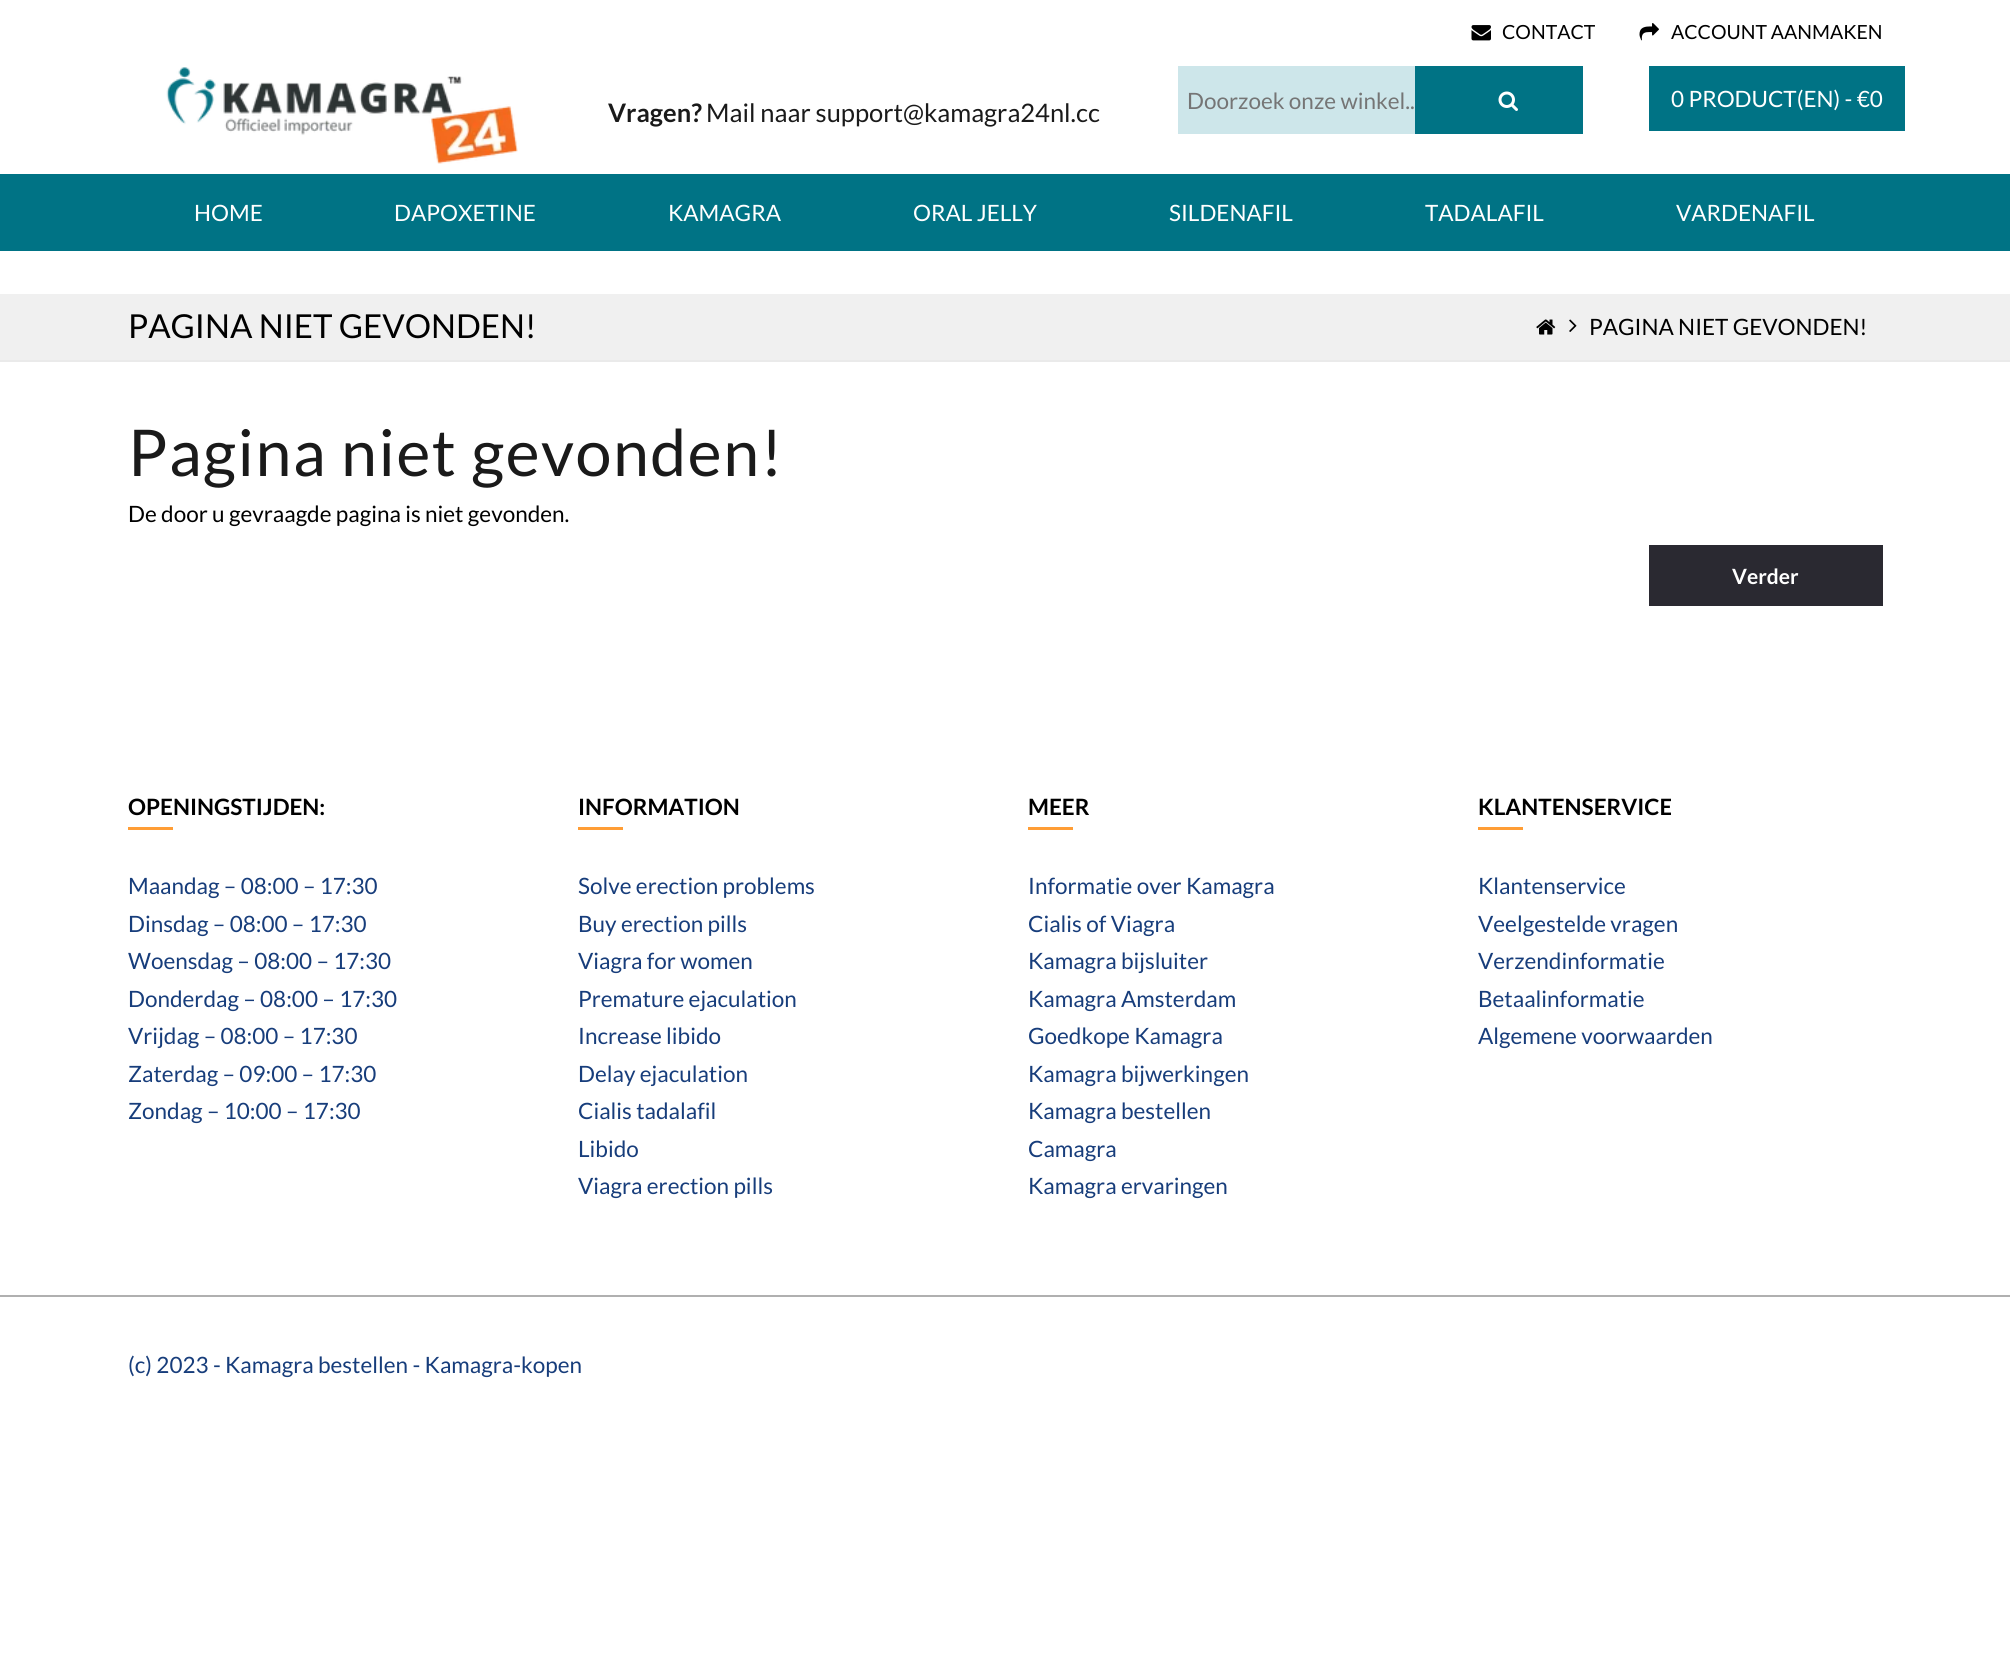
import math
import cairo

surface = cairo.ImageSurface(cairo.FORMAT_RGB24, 2010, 1674)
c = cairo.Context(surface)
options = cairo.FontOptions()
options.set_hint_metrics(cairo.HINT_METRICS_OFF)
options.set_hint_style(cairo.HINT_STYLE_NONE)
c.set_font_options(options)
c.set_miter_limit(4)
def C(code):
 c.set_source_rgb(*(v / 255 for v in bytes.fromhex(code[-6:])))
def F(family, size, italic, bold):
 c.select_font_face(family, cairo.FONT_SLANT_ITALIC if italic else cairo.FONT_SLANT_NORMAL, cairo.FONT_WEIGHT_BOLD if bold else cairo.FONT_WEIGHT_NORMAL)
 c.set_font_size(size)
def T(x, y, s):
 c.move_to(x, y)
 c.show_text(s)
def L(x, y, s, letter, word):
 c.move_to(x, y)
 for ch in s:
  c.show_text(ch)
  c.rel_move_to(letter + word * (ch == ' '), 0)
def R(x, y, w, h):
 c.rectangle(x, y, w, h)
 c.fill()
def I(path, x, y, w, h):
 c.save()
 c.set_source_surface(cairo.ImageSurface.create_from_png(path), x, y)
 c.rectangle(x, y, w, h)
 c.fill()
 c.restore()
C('ffffff')
c.paint()
I('1.png',1471,25,20,16)
F('Lato',19.5,0,0)
C('000000')
T(1502,39,'CONTACT')
I('2.png',1639,23,20,18)
T(1671,39,'ACCOUNT AANMAKEN')
I('3.png',166,67,352,97)
C('cde6ea')
R(1178,66,237,68)
F('Lato',22.5,0,0)
C('757575')
T(1187,109,'Doorzoek onze winkel..')
C('007385')
R(1415,66,168,68)
I('4.png',1498,91,20,20)
R(1649,66,256,65)
C('ffffff')
T(1671,107,'0 PRODUCT(EN) - €0')
F('Lato',25.5,0,1)
C('1a1a1a')
T(608,122,'Vragen?')
F('Lato',25.5,0,0)
T(706,122,'Mail naar support@kamagra24nl.cc')
C('007385')
R(0,174,2010,77)
F('Lato',22.5,0,0)
C('ffffff')
T(194,221,'HOME')
T(394,221,'DAPOXETINE')
T(668,221,'KAMAGRA')
T(913,221,'ORAL JELLY')
T(1169,221,'SILDENAFIL')
T(1425,221,'TADALAFIL')
T(1676,221,'VARDENAFIL')
C('f0f0f0')
R(0,294,2010,66)
C('eaeaea')
R(0,360,2010,2)
F('Lato',33,0,0)
C('000000')
T(128,338,'PAGINA NIET GEVONDEN!')
I('5.png',1536,319,20,16)
I('6.png',1569,319,8,13)
F('Lato',22.5,0,0)
T(1589,335,'PAGINA NIET GEVONDEN!')
F('Lato',64.5,0,0)
C('1a1a1a')
L(128,476,'Pagina niet gevonden!',1.5,0)
F('Lato',22.5,0,0)
C('000000')
T(128,522,'De door u gevraagde pagina is niet gevonden.')
C('2a2931')
R(1649,545,234,61)
F('Lato',21,0,1)
C('ffffff')
T(1732,584,'Verder')
F('Lato',22.5,0,1)
C('000000')
T(128,815,'OPENINGSTIJDEN:')
C('ff9d35')
R(128,827,45,3)
F('Lato',22.5,0,0)
C('173d7b')
T(128,894,'Maandag – 08:00 – 17:30')
T(128,932,'Dinsdag – 08:00 – 17:30')
T(128,969,'Woensdag – 08:00 – 17:30')
T(128,1007,'Donderdag – 08:00 – 17:30')
T(128,1044,'Vrijdag – 08:00 – 17:30')
T(128,1082,'Zaterdag – 09:00 – 17:30')
T(128,1119,'Zondag – 10:00 – 17:30')
F('Lato',22.5,0,1)
C('000000')
T(578,815,'INFORMATION')
C('ff9d35')
R(578,827,45,3)
F('Lato',22.5,0,0)
C('173d7b')
T(578,894,'Solve erection problems')
T(578,932,'Buy erection pills')
T(578,969,'Viagra for women')
T(578,1007,'Premature ejaculation')
T(578,1044,'Increase libido')
T(578,1082,'Delay ejaculation')
T(578,1119,'Cialis tadalafil')
T(578,1157,'Libido')
T(578,1194,'Viagra erection pills')
F('Lato',22.5,0,1)
C('000000')
T(1028,815,'MEER')
C('ff9d35')
R(1028,827,45,3)
F('Lato',22.5,0,0)
C('173d7b')
T(1028,894,'Informatie over Kamagra')
T(1028,932,'Cialis of Viagra')
T(1028,969,'Kamagra bijsluiter')
T(1028,1007,'Kamagra Amsterdam')
T(1028,1044,'Goedkope Kamagra')
T(1028,1082,'Kamagra bijwerkingen')
T(1028,1119,'Kamagra bestellen')
T(1028,1157,'Camagra')
T(1028,1194,'Kamagra ervaringen')
F('Lato',22.5,0,1)
C('000000')
T(1478,815,'KLANTENSERVICE')
C('ff9d35')
R(1478,827,45,3)
F('Lato',22.5,0,0)
C('173d7b')
T(1478,894,'Klantenservice')
T(1478,932,'Veelgestelde vragen')
T(1478,969,'Verzendinformatie')
T(1478,1007,'Betaalinformatie')
T(1478,1044,'Algemene voorwaarden')
C('b0b0b0')
R(0,1295,2010,2)
C('173d7b')
T(128,1373,'(c) 2023 - Kamagra bestellen - Kamagra-kopen')
surface.write_to_png('o.png')
